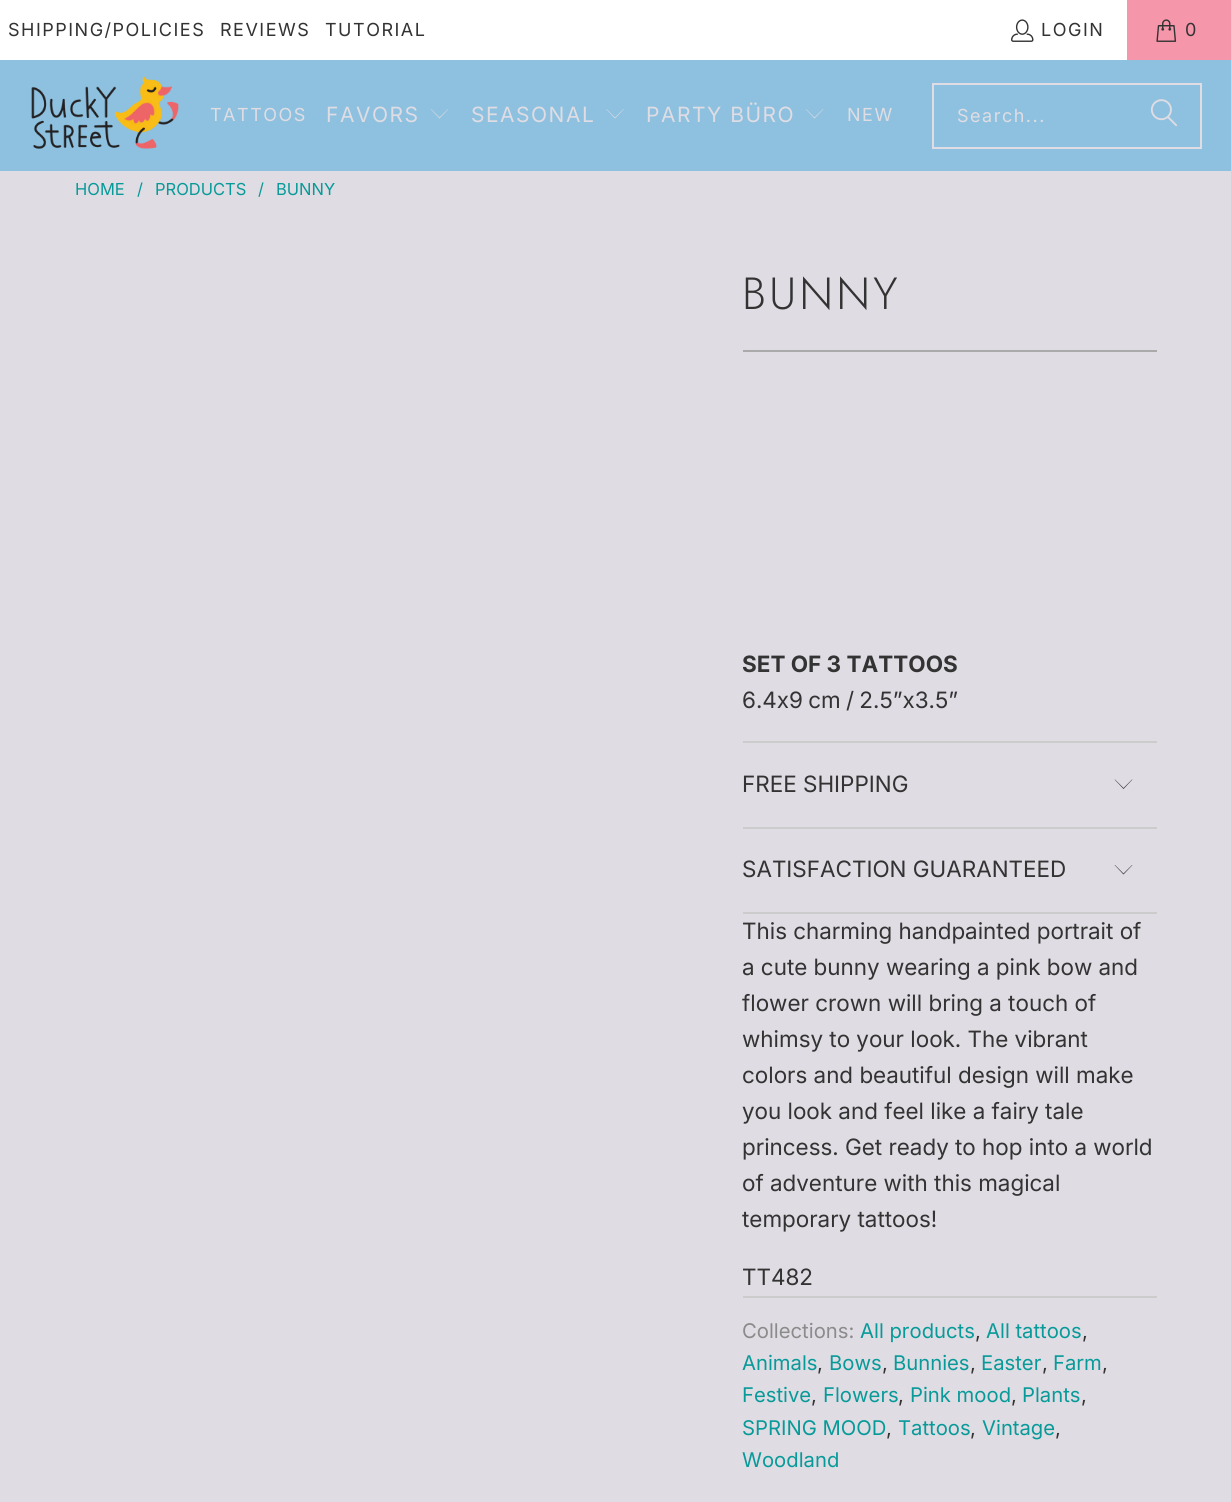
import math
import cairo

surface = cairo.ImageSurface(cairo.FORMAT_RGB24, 1231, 1502)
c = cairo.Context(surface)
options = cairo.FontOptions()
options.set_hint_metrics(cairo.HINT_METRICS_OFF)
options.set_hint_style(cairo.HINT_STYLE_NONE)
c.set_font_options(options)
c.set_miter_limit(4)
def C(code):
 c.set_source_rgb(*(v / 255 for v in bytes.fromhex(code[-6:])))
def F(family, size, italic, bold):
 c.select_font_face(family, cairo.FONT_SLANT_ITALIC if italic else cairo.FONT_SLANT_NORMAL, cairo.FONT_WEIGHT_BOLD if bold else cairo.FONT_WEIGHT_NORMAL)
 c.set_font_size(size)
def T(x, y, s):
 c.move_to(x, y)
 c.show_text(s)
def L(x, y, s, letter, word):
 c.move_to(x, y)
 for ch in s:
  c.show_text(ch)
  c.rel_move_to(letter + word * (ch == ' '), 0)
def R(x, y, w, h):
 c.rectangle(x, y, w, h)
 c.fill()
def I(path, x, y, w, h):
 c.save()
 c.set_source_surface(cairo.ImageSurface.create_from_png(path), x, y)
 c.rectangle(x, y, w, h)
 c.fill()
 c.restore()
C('dfdce3')
c.paint()
C('ffffff')
R(0,0,1127,60)
F('Inter',18,0,0)
C('333333')
L(8,36,'SHIPPING/POLICIES',1.5,0)
L(220,36,'REVIEWS',1.5,0)
L(325,36,'TUTORIAL',1.5,0)
I('1.png',1011,19,23,23)
L(1041,36,'LOGIN',1.5,0)
C('f596aa')
R(1127,0,104,60)
I('2.png',1156,19,21,23)
C('333333')
L(1185,36,'0',1.5,0)
C('8dc1df')
R(0,60,1231,111)
I('3.png',31,76,148,73)
C('dfdce3')
L(210,121,'TATTOOS',1.5,0)
F('Inter',21,0,0)
L(326,122,'FAVORS',1.5,0)
c.new_path()
c.move_to(439.5,118.5)
c.line_to(430.5,109)
c.line_to(431,109)
c.line_to(439.5,117.5)
c.line_to(448,109)
c.line_to(448.5,109)
c.close_path()
c.fill()
L(471,122,'SEASONAL',1.5,0)
c.new_path()
c.move_to(615,118.5)
c.line_to(606,109)
c.line_to(606.5,109)
c.line_to(615,117.5)
c.line_to(623.5,109)
c.line_to(624,109)
c.close_path()
c.fill()
L(646,122,'PARTY BÜRO',1.5,0)
c.new_path()
c.move_to(814.5,118.5)
c.line_to(805.5,109)
c.line_to(806,109)
c.line_to(814.5,117.5)
c.line_to(823,109)
c.line_to(823.5,109)
c.close_path()
c.fill()
F('Inter',18,0,0)
L(847,121,'NEW',1.5,0)
c.rectangle(933,84,268,64)
c.stroke()
L(957,122,'Search...',1.5,0)
I('4.png',1150,99,27,28)
F('Inter',16.5,0,0)
C('089a99')
T(75,195,'HOME')
T(137,195,'/')
T(155,195,'PRODUCTS')
T(258,195,'/')
T(276,195,'BUNNY')
F('Jost Light',45,0,0)
C('333333')
L(742,309,'BUNNY',3,0)
C('aaaaaa')
R(743,350,414,2)
F('Inter',22.5,0,1)
C('333333')
T(742,672,'SET OF 3 TATTOOS')
F('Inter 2',22.5,0,0)
L(742,708,'6.4x9 cm / 2.5”x3.5”',0,-1)
C('cccccc')
R(743,741,414,2)
R(743,827,414,2)
C('333333')
T(742,792,'FREE SHIPPING')
c.new_path()
c.move_to(1123.5,789)
c.line_to(1114.5,779.5)
c.line_to(1115,779.5)
c.line_to(1123.5,788)
c.line_to(1132,779.5)
c.line_to(1132.5,779.5)
c.close_path()
c.fill()
C('cccccc')
R(743,912,414,2)
C('333333')
T(742,877,'SATISFACTION GUARANTEED')
c.new_path()
c.move_to(1123.5,874.5)
c.line_to(1114.5,865)
c.line_to(1115,865)
c.line_to(1123.5,873.5)
c.line_to(1132,865)
c.line_to(1132.5,865)
c.close_path()
c.fill()
T(742,939,'This charming handpainted portrait of')
T(742,975,'a cute bunny wearing a pink bow and')
T(742,1011,'flower crown will bring a touch of')
T(742,1047,'whimsy to your look. The vibrant')
T(742,1083,'colors and beautiful design will make')
T(742,1119,'you look and feel like a fairy tale')
T(742,1155,'princess. Get ready to hop into a world')
T(742,1191,'of adventure with this magical')
T(742,1227,'temporary tattoos!')
T(742,1285,'TT482')
C('cccccc')
R(743,1296,414,2)
F('Inter',20.25,0,0)
C('8c8b8b')
T(742,1338,'Collections:')
C('089a99')
T(860,1338,'All products')
C('333333')
T(975,1338,',')
C('089a99')
T(986,1338,'All tattoos')
C('333333')
T(1082,1338,',')
C('089a99')
T(742,1370,'Animals')
C('333333')
T(817,1370,',')
C('089a99')
T(829,1370,'Bows')
C('333333')
T(882,1370,',')
C('089a99')
T(893,1370,'Bunnies')
C('333333')
T(970,1370,',')
C('089a99')
T(981,1370,'Easter')
C('333333')
T(1042,1370,',')
C('089a99')
T(1053,1370,'Farm')
C('333333')
T(1102,1370,',')
C('089a99')
T(742,1402,'Festive')
C('333333')
T(811,1402,',')
C('089a99')
T(823,1402,'Flowers')
C('333333')
T(898,1402,',')
C('089a99')
T(910,1402,'Pink mood')
C('333333')
T(1011,1402,',')
C('089a99')
T(1022,1402,'Plants')
C('333333')
T(1081,1402,',')
C('089a99')
T(742,1435,'SPRING MOOD')
C('333333')
T(886,1435,',')
C('089a99')
T(898,1435,'Tattoos')
C('333333')
T(970,1435,',')
C('089a99')
T(982,1435,'Vintage')
C('333333')
T(1055,1435,',')
C('089a99')
T(742,1467,'Woodland')
surface.write_to_png('o.png')
